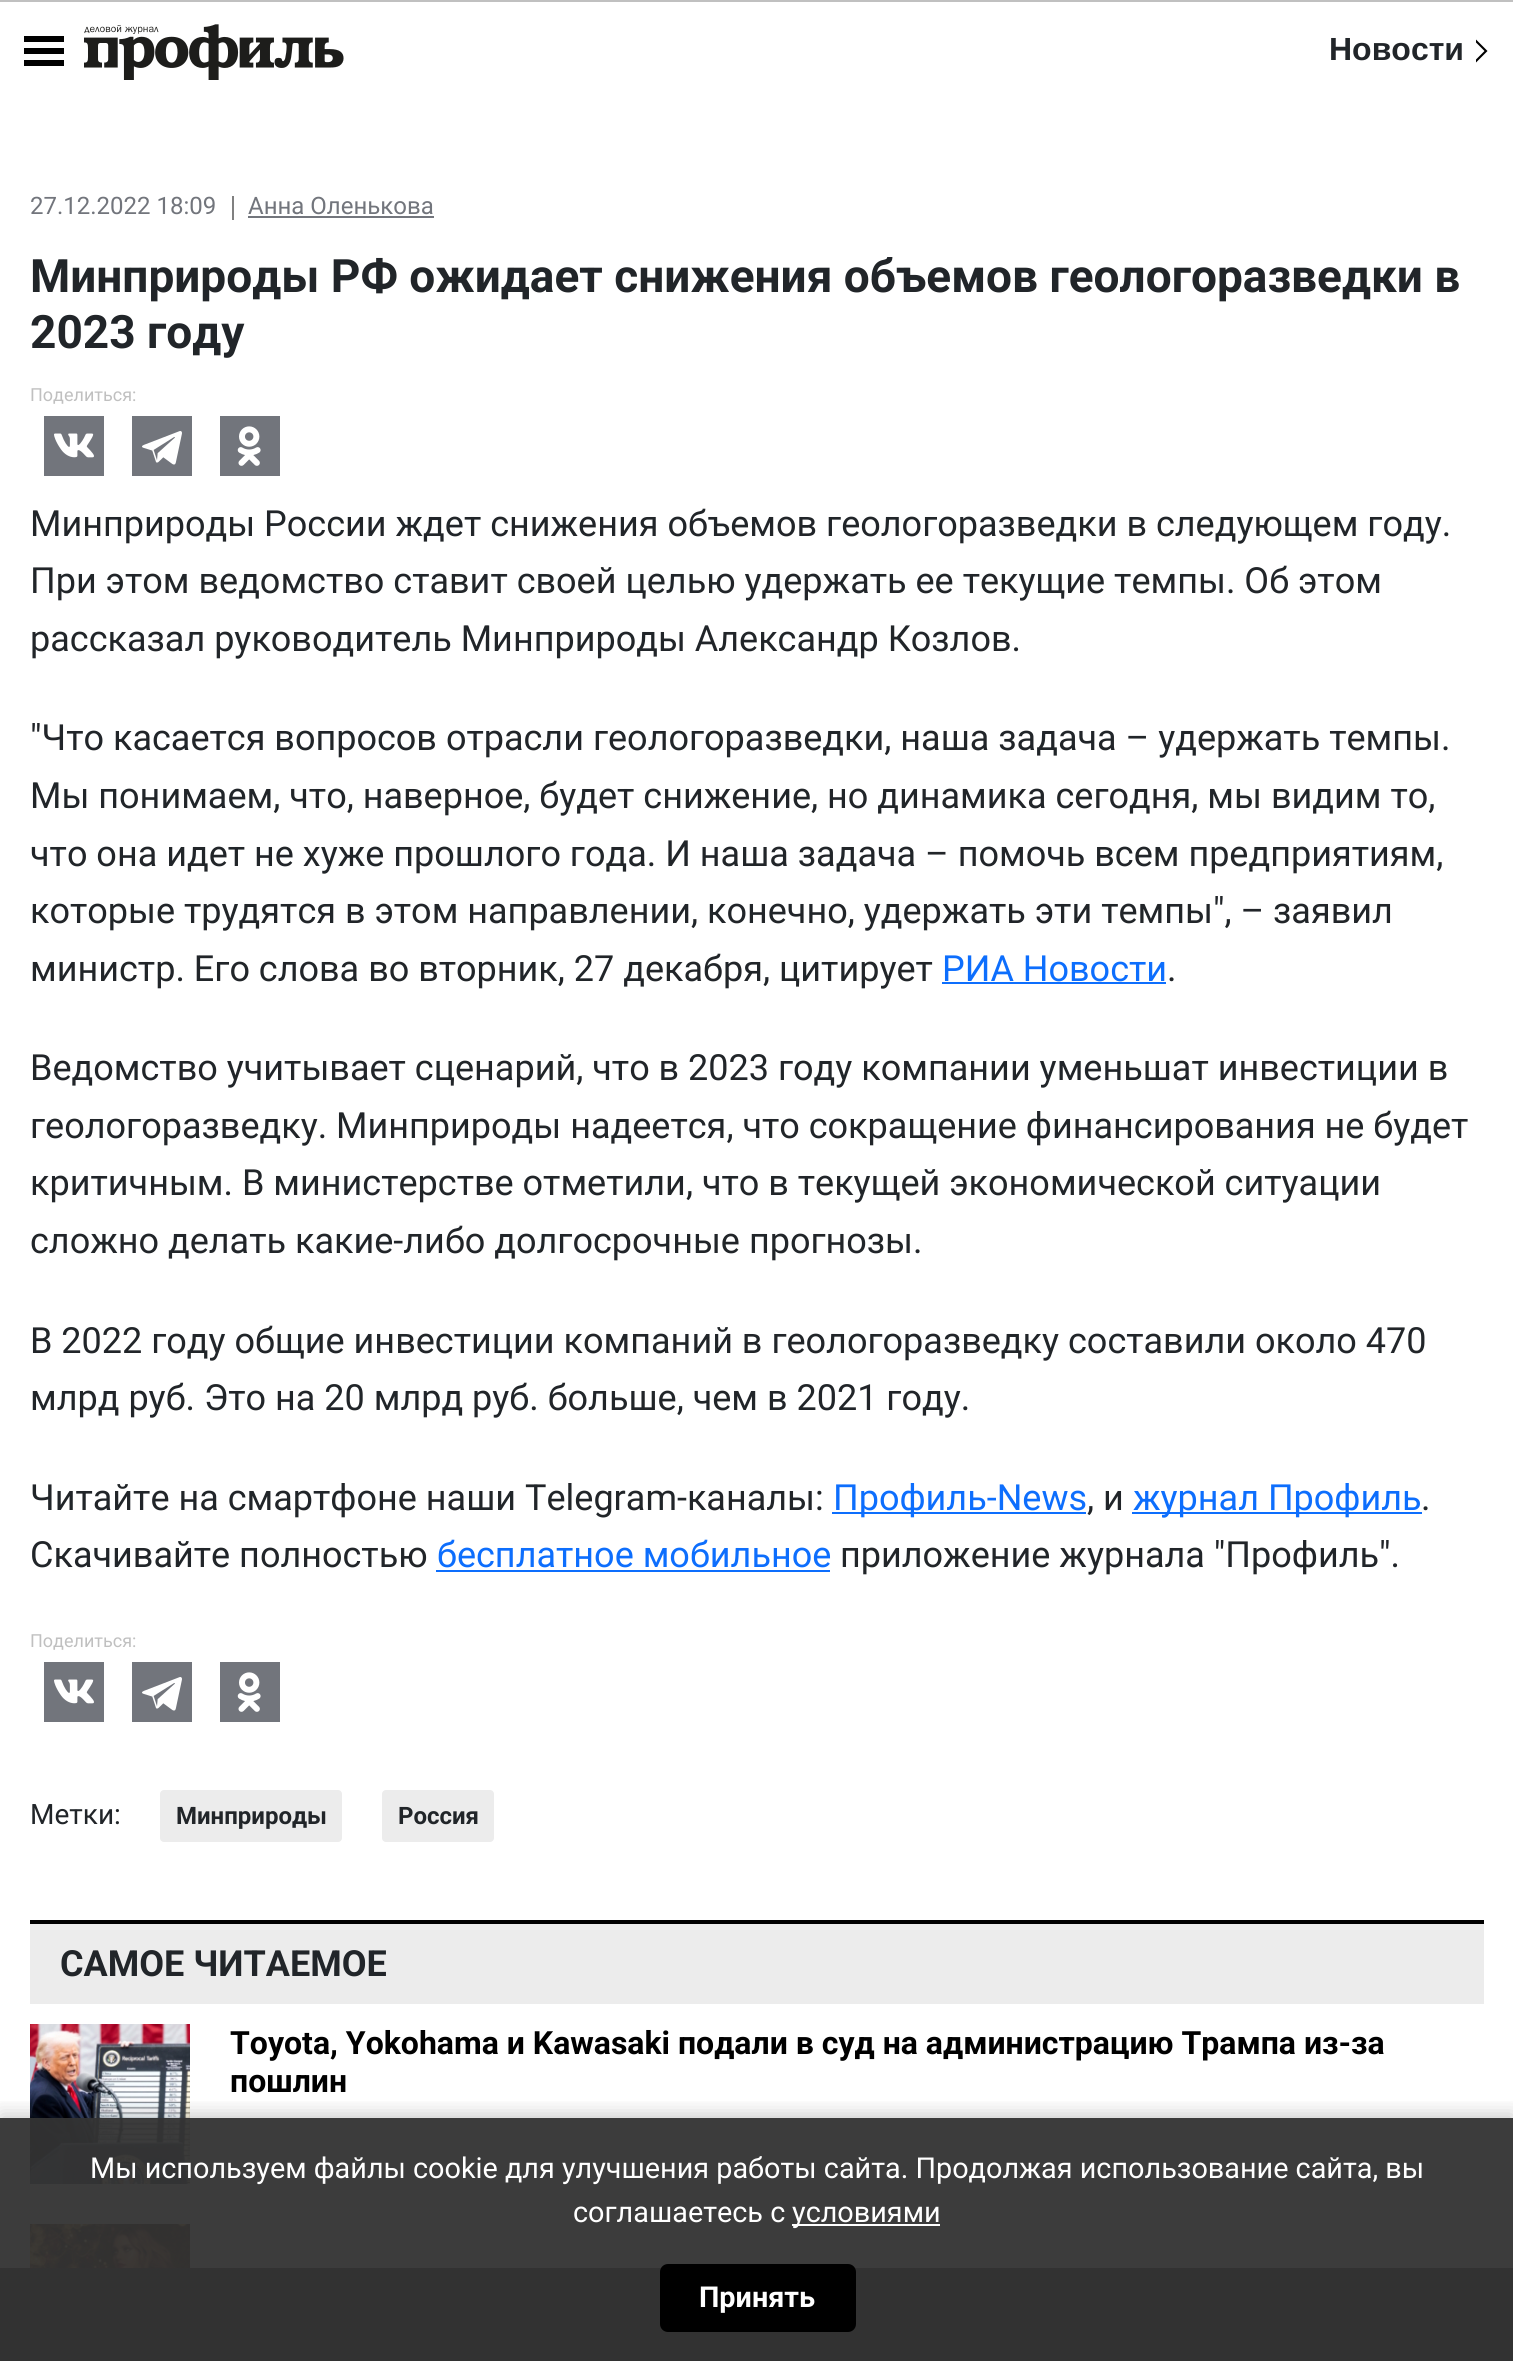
import math
import cairo

surface = cairo.ImageSurface(cairo.FORMAT_RGB24, 1513, 2361)
c = cairo.Context(surface)
options = cairo.FontOptions()
options.set_hint_metrics(cairo.HINT_METRICS_OFF)
options.set_hint_style(cairo.HINT_STYLE_NONE)
c.set_font_options(options)
c.set_miter_limit(4)
def C(code):
 c.set_source_rgb(*(v / 255 for v in bytes.fromhex(code[-6:])))
def F(family, size, italic, bold):
 c.select_font_face(family, cairo.FONT_SLANT_ITALIC if italic else cairo.FONT_SLANT_NORMAL, cairo.FONT_WEIGHT_BOLD if bold else cairo.FONT_WEIGHT_NORMAL)
 c.set_font_size(size)
def T(x, y, s):
 c.move_to(x, y)
 c.show_text(s)
def R(x, y, w, h):
 c.rectangle(x, y, w, h)
 c.fill()
def Q(x, y, w, h, r):
 c.new_sub_path()
 for i, (u, v) in enumerate([(x + w - r, y + h - r), (x + r, y + h - r), (x + r, y + r), (x + w - r, y + r)]):
  c.arc(u, v, r, i * math.pi / 2, (i + 1) * math.pi / 2)
 c.close_path()
def S(x, y, w, h, r, blur, alpha):
 c.push_group_with_content(cairo.CONTENT_ALPHA)
 c.set_operator(cairo.OPERATOR_SOURCE)
 for i in range(15, -16, -2):
  e = blur * i / 6
  if min(w, h) + 2 * e > 0:
   c.set_source_rgba(0, 0, 0, alpha * math.erfc((i - 1) / 8.5) / 2)
   Q(x - e, y - e, w + 2 * e, h + 2 * e, max(0, min(r + e + blur * .6, min(w, h) / 2 + e)))
   c.fill()
 c.mask(c.pop_group())
def I(path, x, y, w, h):
 c.save()
 c.set_source_surface(cairo.ImageSurface.create_from_png(path), x, y)
 c.rectangle(x, y, w, h)
 c.fill()
 c.restore()
C('ffffff')
c.paint()
C('c0c0c0')
R(0,0,1513,2)
C('000000')
R(24,48,40,6)
R(24,36,40,6)
R(24,60,40,6)
I('1.png',84,24,260,56)
F('Liberation Sans',32,0,1)
C('212529')
T(1329,60,'Новости')
C('000000')
c.new_path()
c.move_to(1487.5,51)
c.line_to(1476,62.5)
c.line_to(1476,59.5)
c.line_to(1484.5,51)
c.close_path()
c.move_to(1476,39.5)
c.line_to(1487.5,51)
c.line_to(1484.5,51)
c.line_to(1476,42.5)
c.close_path()
c.fill()
F('Roboto',24,0,0)
C('72757c')
T(30,214,'27.12.2022 18:09')
C('808080')
R(232,196,2,24)
C('72757c')
T(248,214,'Анна Оленькова')
R(248,216,186,2)
F('Roboto',46,0,1)
C('212529')
T(30,292,'Минприроды РФ ожидает снижения объемов геологоразведки в')
T(30,348,'2023 году')
F('Roboto',18,0,0)
C('c0c0c0')
T(30,401,'Поделиться:')
C('72757c')
R(44,416,60,60)
I('2.png',54,433,40,25)
R(132,416,60,60)
I('3.png',142,431,40,34)
R(220,416,60,60)
I('4.png',237,426,24,40)
F('Roboto',36,0,0)
C('212529')
T(30,536,'Минприроды России ждет снижения объемов геологоразведки в следующем году.')
T(30,593,'При этом ведомство ставит своей целью удержать ее текущие темпы. Об этом')
T(30,651,'рассказал руководитель Минприроды Александр Козлов.')
T(30,750,'"Что касается вопросов отрасли геологоразведки, наша задача – удержать темпы.')
T(30,808,'Мы понимаем, что, наверное, будет снижение, но динамика сегодня, мы видим то,')
T(30,866,'что она идет не хуже прошлого года. И наша задача – помочь всем предприятиям,')
T(30,923,'которые трудятся в этом направлении, конечно, удержать эти темпы", – заявил')
T(30,981,'министр. Его слова во вторник, 27 декабря, цитирует')
C('0d6efd')
T(942,981,'РИА Новости')
R(942,982,224,2)
C('212529')
T(1167,981,'.')
T(30,1080,'Ведомство учитывает сценарий, что в 2023 году компании уменьшат инвестиции в')
T(30,1138,'геологоразведку. Минприроды надеется, что сокращение финансирования не будет')
T(30,1195,'критичным. В министерстве отметили, что в текущей экономической ситуации')
T(30,1253,'сложно делать какие-либо долгосрочные прогнозы.')
T(30,1353,'В 2022 году общие инвестиции компаний в геологоразведку составили около 470')
T(30,1410,'млрд руб. Это на 20 млрд руб. больше, чем в 2021 году.')
T(30,1510,'Читайте на смартфоне наши Telegram-каналы:')
C('0d6efd')
R(832,1512,254,2)
T(833,1510,'Профиль-News')
C('212529')
T(1087,1510,', и')
C('0d6efd')
R(1132,1512,290,2)
T(1133,1510,'журнал Профиль')
C('212529')
T(1421,1510,'.')
T(30,1567,'Скачивайте полностью')
C('0d6efd')
T(437,1567,'бесплатное мобильное')
R(436,1570,394,2)
C('212529')
T(840,1567,'приложение журнала "Профиль".')
F('Roboto',18,0,0)
C('c0c0c0')
T(30,1647,'Поделиться:')
C('72757c')
R(44,1662,60,60)
I('2.png',54,1679,40,25)
R(132,1662,60,60)
I('3.png',142,1677,40,34)
R(220,1662,60,60)
I('4.png',237,1672,24,40)
F('Roboto',28,0,0)
C('212529')
T(30,1824,'Метки:')
C('ececec')
Q(160,1790,182,52,4)
c.fill()
F('Roboto',24,0,1)
C('212529')
T(176,1824,'Минприроды')
C('ececec')
Q(382,1790,112,52,4)
c.fill()
C('212529')
T(398,1824,'Россия')
C('ececec')
R(30,1924,1454,80)
C('000000')
R(30,1920,1454,4)
F('Roboto',36,0,1)
C('212529')
T(60,1976,'САМОЕ ЧИТАЕМОЕ')
I('5.png',30,2024,160,160)
F('Roboto',32,0,1)
C('000000')
T(230,2054,'Toyota, Yokohama и Kawasaki подали в суд на администрацию Трампа из-за')
T(230,2092,'пошлин')
I('6.png',30,2224,160,44)
C('303030')
R(0,2268,1513,93)
c.save()
c.rectangle(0,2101,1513,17)
c.clip()
C('000000')
S(0,2114,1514,244,0,10,.2)
c.restore()
c.set_source_rgba(0.2,0.2,0.2,0.95)
R(0,2118,1513,243)
F('Roboto',28.8,0,0)
C('ffffff')
T(90,2178,'Мы используем файлы cookie для улучшения работы сайта. Продолжая использование сайта, вы')
T(573,2222,'соглашаетесь с')
R(792,2224,148,2)
T(792,2222,'условиями')
C('000000')
Q(660,2264,196,68,8)
c.fill()
F('Roboto',28.8,0,1)
C('ffffff')
T(699,2307,'Принять')
surface.write_to_png('o.png')
